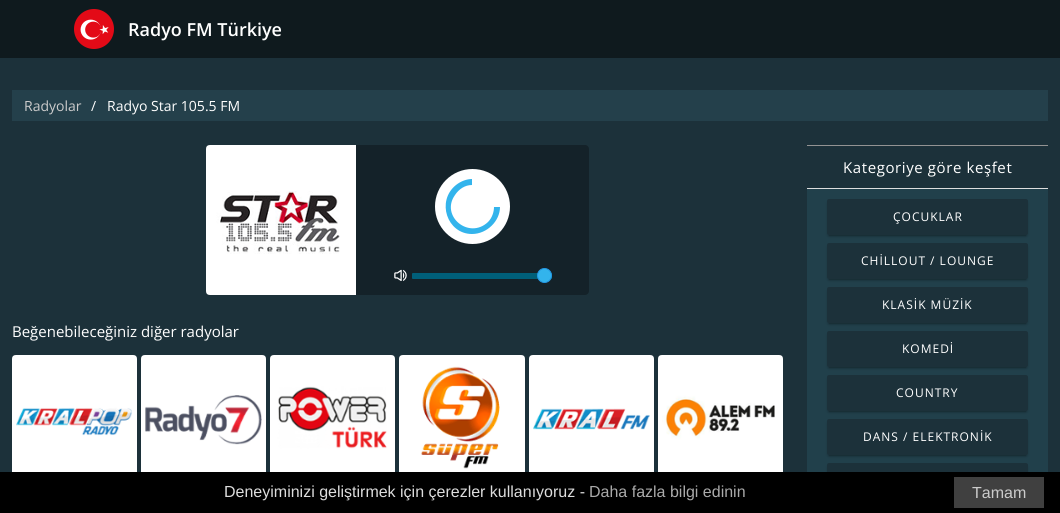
import math
import cairo

surface = cairo.ImageSurface(cairo.FORMAT_RGB24, 1060, 513)
c = cairo.Context(surface)
options = cairo.FontOptions()
options.set_hint_metrics(cairo.HINT_METRICS_OFF)
options.set_hint_style(cairo.HINT_STYLE_NONE)
c.set_font_options(options)
c.set_miter_limit(4)
def C(code):
 c.set_source_rgb(*(v / 255 for v in bytes.fromhex(code[-6:])))
def F(family, size, italic, bold):
 c.select_font_face(family, cairo.FONT_SLANT_ITALIC if italic else cairo.FONT_SLANT_NORMAL, cairo.FONT_WEIGHT_BOLD if bold else cairo.FONT_WEIGHT_NORMAL)
 c.set_font_size(size)
def T(x, y, s):
 c.move_to(x, y)
 c.show_text(s)
def L(x, y, s, letter, word):
 c.move_to(x, y)
 for ch in s:
  c.show_text(ch)
  c.rel_move_to(letter + word * (ch == ' '), 0)
def R(x, y, w, h):
 c.rectangle(x, y, w, h)
 c.fill()
def Q(x, y, w, h, r):
 c.new_sub_path()
 for i, (u, v) in enumerate([(x + w - r, y + h - r), (x + r, y + h - r), (x + r, y + r), (x + w - r, y + r)]):
  c.arc(u, v, r, i * math.pi / 2, (i + 1) * math.pi / 2)
 c.close_path()
def S(x, y, w, h, r, blur, alpha):
 c.push_group_with_content(cairo.CONTENT_ALPHA)
 c.set_operator(cairo.OPERATOR_SOURCE)
 for i in range(15, -16, -2):
  e = blur * i / 6
  if min(w, h) + 2 * e > 0:
   c.set_source_rgba(0, 0, 0, alpha * math.erfc((i - 1) / 8.5) / 2)
   Q(x - e, y - e, w + 2 * e, h + 2 * e, max(0, min(r + e + blur * .6, min(w, h) / 2 + e)))
   c.fill()
 c.mask(c.pop_group())
def I(path, x, y, w, h):
 c.save()
 c.set_source_surface(cairo.ImageSurface.create_from_png(path), x, y)
 c.rectangle(x, y, w, h)
 c.fill()
 c.restore()
C('1c313a')
c.paint()
C('0f1a1e')
R(0,0,1060,58)
I('1.png',74,9,40,40)
F('Open Sans SemiBold',18,0,0)
C('ffffff')
T(128,36,'Radyo FM Türkiye')
C('24404b')
R(12,90,1036,31)
F('Open Sans',14,0,0)
C('cccccc')
T(24,111,'Radyolar')
C('ffffff')
T(91,111,'/')
T(107,111,'Radyo Star 105.5 FM')
C('142229')
Q(206,145,383,150,4)
c.fill()
I('2.png',206,145,150,150)
C('ffffff')
c.arc(472.5,206.5,37.5,0,2 * math.pi)
c.fill()
C('33b4ec')
c.new_path()
c.move_to(472,234)
c.curve_to(487,234,500,221,500,207)
c.line_to(494,207)
c.curve_to(494,212,492,218,488,222)
c.curve_to(469,240,440,216,455,195)
c.curve_to(459,189,465,185,472,185)
c.line_to(472,179)
c.curve_to(467,179,461,181,456,185)
c.curve_to(436,201,447,234,472,234)
c.close_path()
c.fill()
I('3.png',394,269,13,12)
C('005f79')
Q(412,273,140,6,1)
c.fill()
C('33b4ec')
c.arc(544.5,275.5,7,0,2 * math.pi)
c.fill_preserve()
C('2497e3')
c.set_line_width(1)
c.stroke()
F('Open Sans',15,0,0)
C('ffffff')
T(12,337,'Beğenebileceğiniz diğer radyolar')
I('4.png',12,355,125,117)
I('5.png',141,355,125,117)
I('6.png',270,355,125,117)
I('7.png',399,355,126,117)
I('8.png',529,355,125,117)
I('9.png',658,355,125,117)
C('939393')
R(807,145,241,1)
C('dddddd')
R(807,188,241,1)
C('ffffff')
L(843,173,'Kategoriye göre keşfet',.6,0)
C('21404b')
R(807,189,241,283)
C('000000')
S(827,201,201,36,2,1,.14)
S(829,204,197,32,0,.5,.2)
C('1c313a')
Q(827,199,201,36,2)
c.fill()
F('Open Sans',12,0,0)
C('ffffff')
L(893,221,'ÇOCUKLAR',1,0)
C('000000')
S(827,245,201,36,2,1,.14)
S(829,248,197,32,0,.5,.2)
C('1c313a')
Q(827,243,201,36,2)
c.fill()
C('ffffff')
L(861,265,'CHİLLOUT / LOUNGE',1,0)
C('000000')
S(827,289,201,36,2,1,.14)
S(829,292,197,32,0,.5,.2)
C('1c313a')
Q(827,287,201,36,2)
c.fill()
C('ffffff')
L(882,309,'KLASİK MÜZİK',1,0)
C('000000')
S(827,333,201,36,2,1,.14)
S(829,336,197,32,0,.5,.2)
C('1c313a')
Q(827,331,201,36,2)
c.fill()
C('ffffff')
L(902,353,'KOMEDİ',1,0)
C('000000')
S(827,377,201,36,2,1,.14)
S(829,380,197,32,0,.5,.2)
C('1c313a')
Q(827,375,201,36,2)
c.fill()
C('ffffff')
L(896,397,'COUNTRY',1,0)
C('000000')
S(827,421,201,36,2,1,.14)
S(829,424,197,32,0,.5,.2)
C('1c313a')
Q(827,419,201,36,2)
c.fill()
C('ffffff')
L(863,441,'DANS / ELEKTRONİK',1,0)
C('000000')
S(827,465,201,36,2,1,.14)
C('1c313a')
Q(827,463,201,36,2)
c.fill()
C('000000')
R(0,472,1060,41)
F('Liberation Sans',16,0,0)
C('dddddd')
T(224,497,'Deneyiminizi geliştirmek için çerezler kullanıyoruz -')
C('aaaaaa')
T(589,497,'Daha fazla bilgi edinin')
C('404040')
R(954,477,90,31)
C('cccccc')
T(972,498,'Tamam')
surface.write_to_png('o.png')
